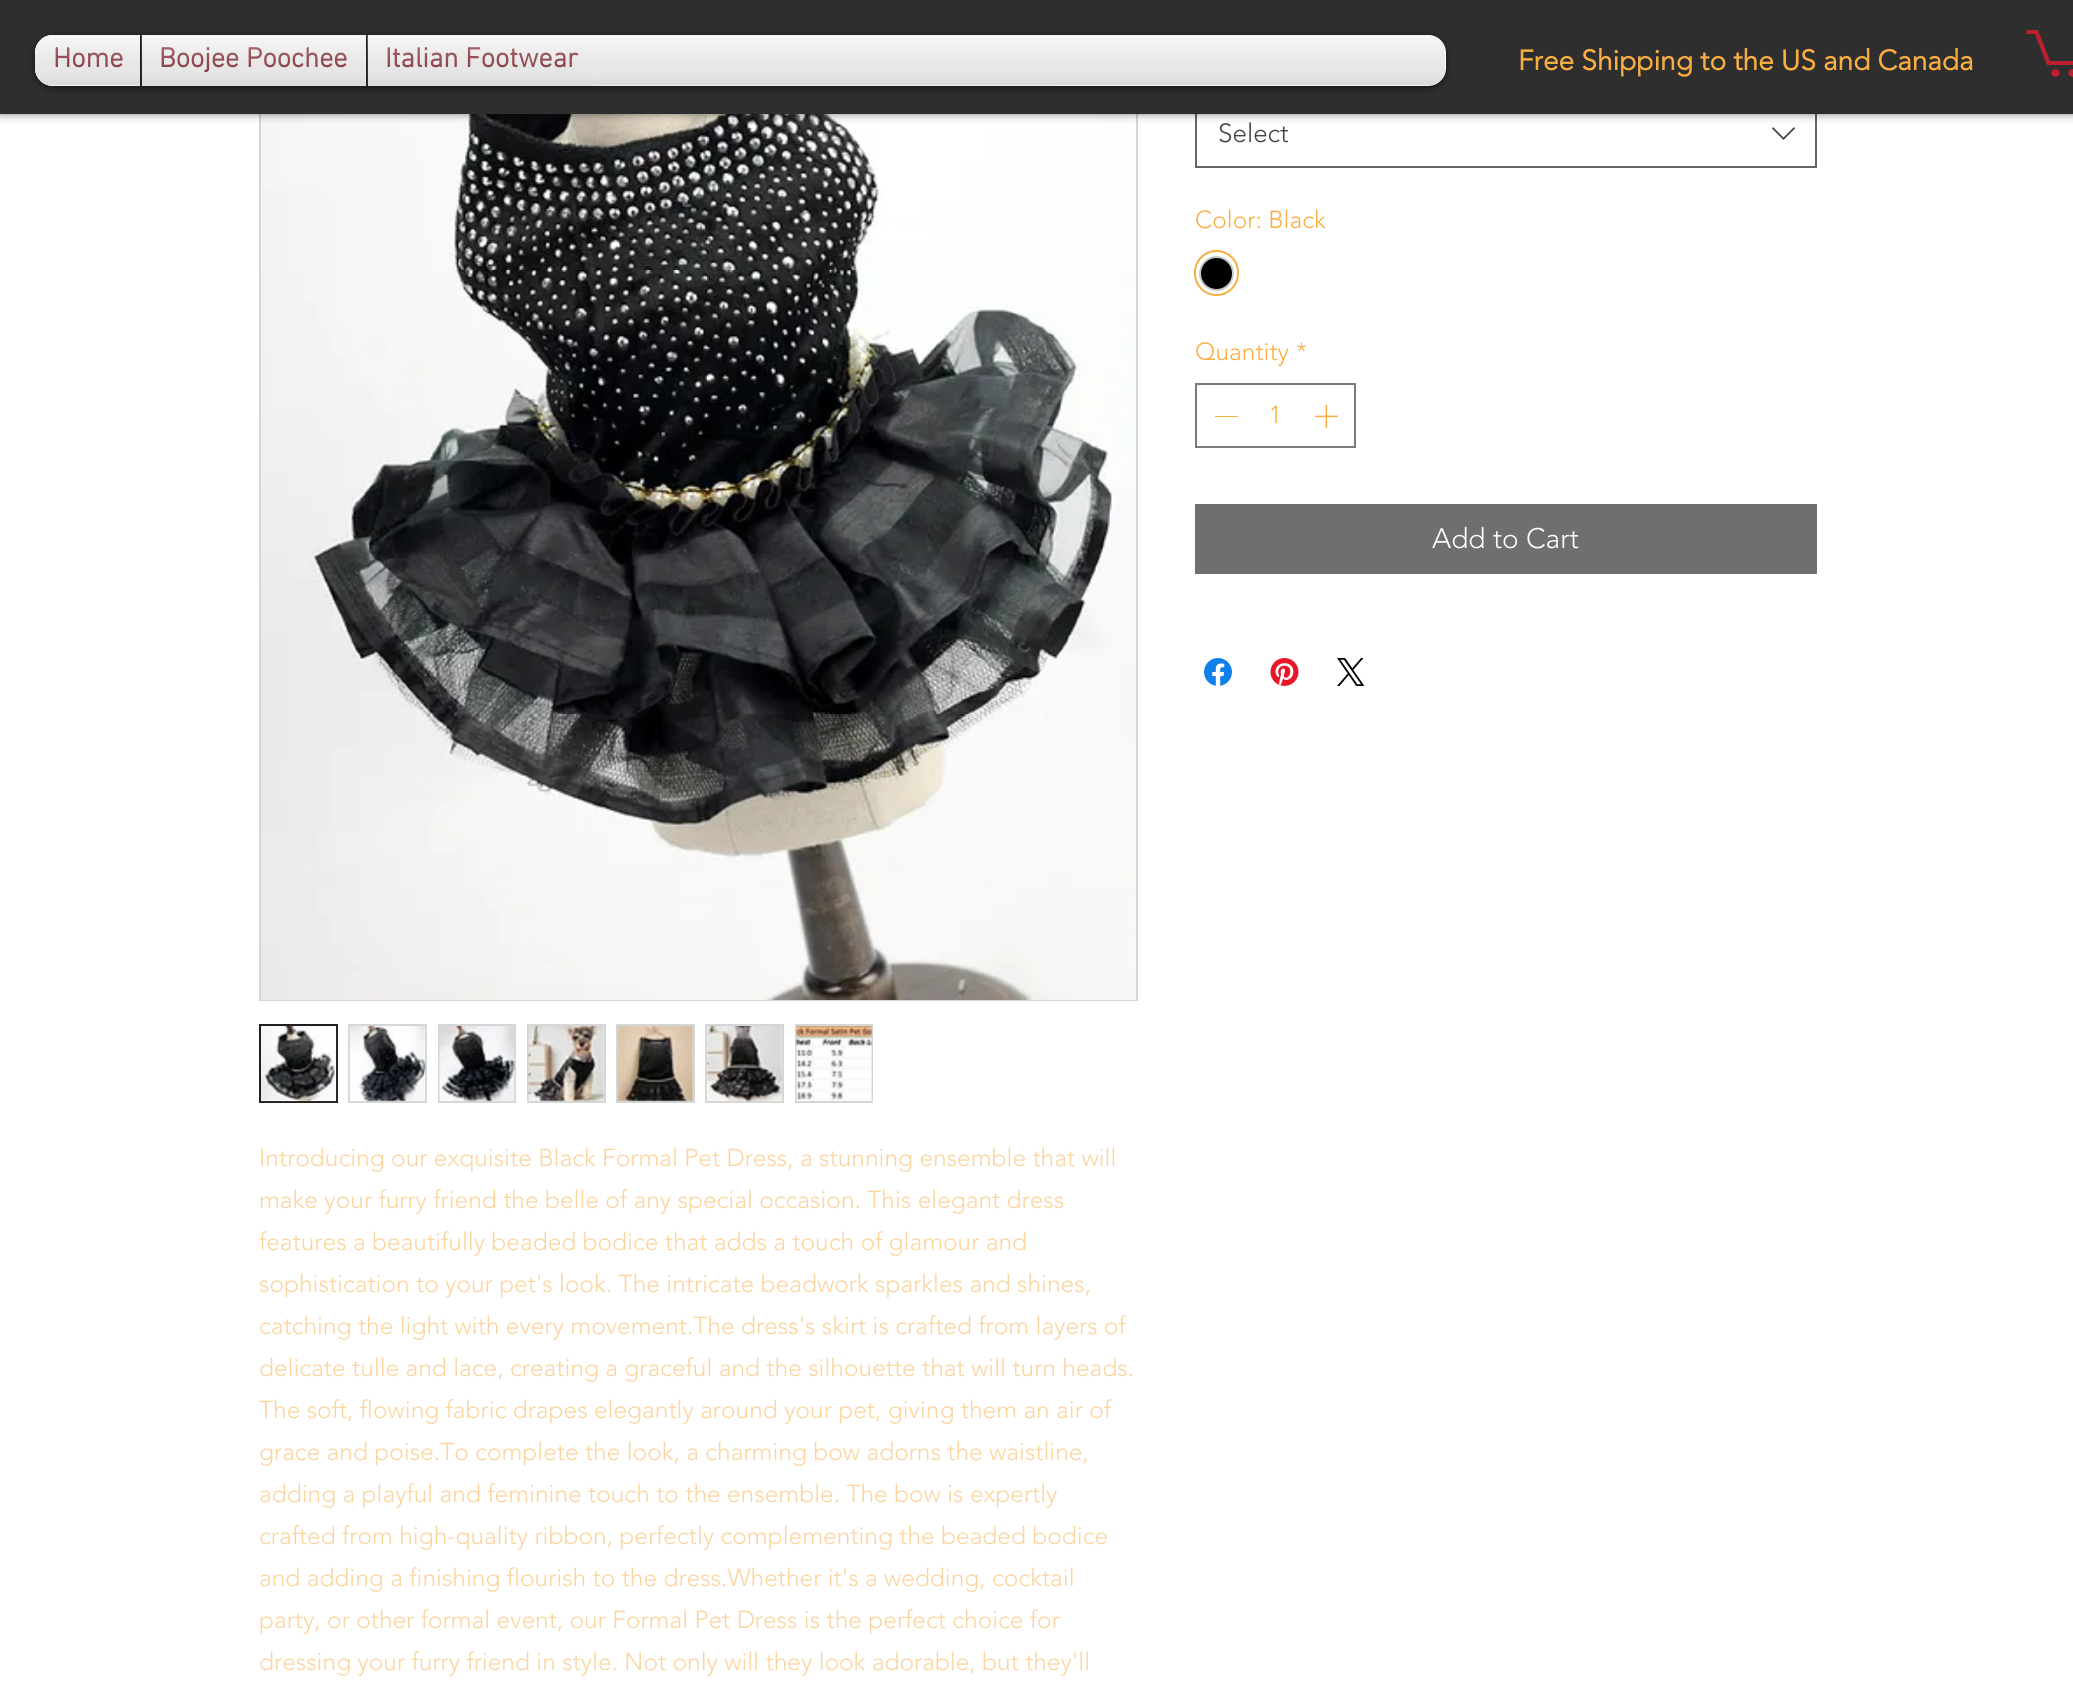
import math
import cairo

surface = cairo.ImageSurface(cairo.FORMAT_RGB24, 2073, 1695)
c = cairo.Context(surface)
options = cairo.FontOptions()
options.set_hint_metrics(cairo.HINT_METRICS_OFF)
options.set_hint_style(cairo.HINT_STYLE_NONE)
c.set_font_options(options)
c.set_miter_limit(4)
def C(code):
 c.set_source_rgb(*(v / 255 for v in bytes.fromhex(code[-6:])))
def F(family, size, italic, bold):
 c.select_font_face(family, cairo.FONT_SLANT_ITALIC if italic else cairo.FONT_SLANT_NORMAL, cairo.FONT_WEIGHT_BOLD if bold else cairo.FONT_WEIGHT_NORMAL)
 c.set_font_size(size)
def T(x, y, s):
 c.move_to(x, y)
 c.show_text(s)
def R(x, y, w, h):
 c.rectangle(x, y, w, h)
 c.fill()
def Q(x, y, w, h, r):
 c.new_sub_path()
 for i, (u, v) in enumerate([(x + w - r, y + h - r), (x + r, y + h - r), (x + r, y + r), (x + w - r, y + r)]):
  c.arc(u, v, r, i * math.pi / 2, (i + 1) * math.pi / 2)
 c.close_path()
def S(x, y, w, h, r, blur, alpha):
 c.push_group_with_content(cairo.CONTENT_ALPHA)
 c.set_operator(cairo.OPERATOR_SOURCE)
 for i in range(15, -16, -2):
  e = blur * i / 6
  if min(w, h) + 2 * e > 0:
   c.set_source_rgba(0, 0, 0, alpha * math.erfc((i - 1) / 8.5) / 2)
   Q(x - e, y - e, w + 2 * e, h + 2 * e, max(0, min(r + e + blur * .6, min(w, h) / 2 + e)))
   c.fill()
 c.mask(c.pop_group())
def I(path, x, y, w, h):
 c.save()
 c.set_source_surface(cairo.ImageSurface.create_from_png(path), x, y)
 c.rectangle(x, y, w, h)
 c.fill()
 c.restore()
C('ffffff')
c.paint()
c.rectangle(1196,101,620,66)
C('666666')
c.stroke()
C('444444')
c.set_fill_rule(cairo.FILL_RULE_EVEN_ODD)
c.new_path()
c.move_to(1794,127)
c.line_to(1795,128.5)
c.line_to(1783.5,140)
c.line_to(1772,128.5)
c.line_to(1773,127)
c.line_to(1783.5,137.5)
c.close_path()
c.fill()
c.rectangle(260,-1,877,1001)
C('d4d6d7')
c.stroke()
I('13.png',261,114,875,886)
C('000000')
S(0,0,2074,114,0,4.5,.5)
C('2f2e2e')
R(0,0,2073,114)
C('000000')
S(35,37,1411,51,18,3.5,.6)
C('ffffff')
Q(35,35,1411,51,18)
c.fill()
I('1.png',35,35,1410,50)
I('2.png',35,35,1410,51)
c.new_path()
c.move_to(53,35)
c.line_to(140,35)
c.line_to(140,86)
c.line_to(53,86)
c.curve_to(43,86,35,78,35,68)
c.line_to(35,53)
c.curve_to(35,43,43,35,53,35)
c.close_path()
c.fill()
F('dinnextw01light',28,0,1)
C('7d151f')
T(53,67,'Home')
I('3.png',35,35,87,33)
I('4.png',35,35,105,51)
C('ffffff')
R(142,35,224,51)
C('231f20')
R(140,35,2,51)
C('7d151f')
T(159,67,'Boojee Poochee')
I('5.png',141,35,205,51)
I('6.png',142,35,224,51)
C('ffffff')
R(368,35,227,51)
C('231f20')
R(366,35,2,51)
C('7d151f')
T(385,67,'Italian Footwear')
I('7.png',367,35,211,51)
I('8.png',368,35,228,51)
F('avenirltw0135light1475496',28,0,1)
C('f9ae42')
T(1518,70,'Free Shipping to the US and Canada')
C('bc202e')
c.set_fill_rule(cairo.FILL_RULE_WINDING)
c.new_path()
c.move_to(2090,42)
c.line_to(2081,65)
c.line_to(2047,65)
c.line_to(2035,34)
c.line_to(2026,34)
c.line_to(2027,30)
c.line_to(2038,30)
c.line_to(2050,61)
c.line_to(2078,61)
c.line_to(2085,42)
c.fill()
c.arc(2072.5,73,4,0,2 * math.pi)
c.fill()
c.arc(2055.5,73,4,0,2 * math.pi)
c.fill()
F('avenirltw0135light1475496 Light',26,0,0)
C('444444')
T(1218,142,'Select')
F('avenirltw0135light1475496 Light',24.5,0,0)
C('f9ae42')
T(1195,228,'Color: Black')
Q(1195,251,43,44,21.5)
c.stroke()
C('000000')
c.arc(1216.5,273.5,16.5,0,2 * math.pi)
c.fill_preserve()
C('c9c9c9')
c.stroke()
C('f9ae42')
T(1195,360,'Quantity')
T(1296,360,'*')
c.rectangle(1196,384,159,63)
C('7b7979')
c.stroke()
C('f9ae42')
R(1215,416,23,1)
T(1269,423,'1')
I('9.png',1314,404,24,24)
C('6d6f70')
R(1195,504,622,70)
F('avenirltw0135light1475496 Light',28,0,0)
C('ffffff')
T(1432,548,'Add to Cart')
I('10.png',1204,658,28,28)
I('11.png',1270,658,29,28)
I('12.png',1337,658,28,28)
c.rectangle(260,1025,77,77)
C('231f20')
c.stroke()
I('14.png',261,1026,76,76)
c.rectangle(349,1025,77,77)
C('d4d6d7')
c.stroke()
I('15.png',349,1026,77,76)
c.rectangle(439,1025,76,77)
c.stroke()
I('16.png',439,1026,76,76)
c.rectangle(528,1025,77,77)
c.stroke()
I('17.png',528,1026,76,76)
c.rectangle(617,1025,77,77)
c.stroke()
I('18.png',617,1026,77,76)
c.rectangle(706,1025,77,77)
c.stroke()
I('19.png',706,1026,77,76)
c.rectangle(796,1025,76,77)
c.stroke()
I('20.png',795,1026,77,75)
F('avenirltw0135light1475496 Light',24.5,0,0)
C('fbd59f')
T(259,1166,'Introducing our exquisite Black Formal Pet Dress, a stunning ensemble that will')
T(259,1208,'make your furry friend the belle of any special occasion. This elegant dress')
T(259,1250,'features a beautifully beaded bodice that adds a touch of glamour and')
T(259,1292,'sophistication to your pet\'s look. The intricate beadwork sparkles and shines,')
T(259,1334,'catching the light with every movement.The dress\'s skirt is crafted from layers of')
T(259,1376,'delicate tulle and lace, creating a graceful and the silhouette that will turn heads.')
T(259,1418,'The soft, flowing fabric drapes elegantly around your pet, giving them an air of')
T(259,1460,'grace and poise.To complete the look, a charming bow adorns the waistline,')
T(259,1502,'adding a playful and feminine touch to the ensemble. The bow is expertly')
T(259,1544,'crafted from high-quality ribbon, perfectly complementing the beaded bodice')
T(259,1586,'and adding a finishing flourish to the dress.Whether it\'s a wedding, cocktail')
T(259,1628,'party, or other formal event, our Formal Pet Dress is the perfect choice for')
T(259,1670,'dressing your furry friend in style. Not only will they look adorable, but they\'ll')
surface.write_to_png('o.png')
